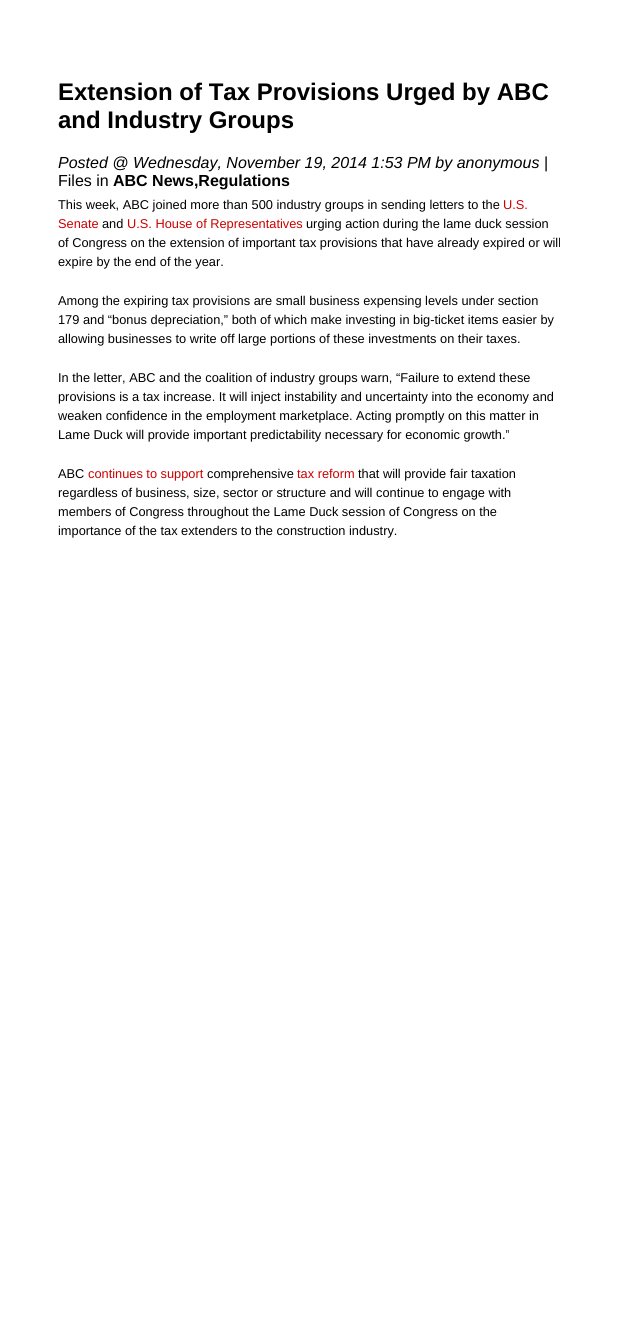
import math
import cairo

surface = cairo.ImageSurface(cairo.FORMAT_RGB24, 619, 1324)
c = cairo.Context(surface)
options = cairo.FontOptions()
options.set_hint_metrics(cairo.HINT_METRICS_OFF)
options.set_hint_style(cairo.HINT_STYLE_NONE)
c.set_font_options(options)
c.set_miter_limit(4)
def C(code):
 c.set_source_rgb(*(v / 255 for v in bytes.fromhex(code[-6:])))
def F(family, size, italic, bold):
 c.select_font_face(family, cairo.FONT_SLANT_ITALIC if italic else cairo.FONT_SLANT_NORMAL, cairo.FONT_WEIGHT_BOLD if bold else cairo.FONT_WEIGHT_NORMAL)
 c.set_font_size(size)
def T(x, y, s):
 c.move_to(x, y)
 c.show_text(s)
C('ffffff')
c.paint()
F('Liberation Sans',24,0,1)
C('000000')
T(58,100,'Extension of Tax Provisions Urged by ABC')
T(58,128,'and Industry Groups')
F('Liberation Sans',16,1,0)
T(58,168,'Posted @ Wednesday, November 19, 2014 1:53 PM by anonymous')
F('Liberation Sans',16,0,0)
T(544,168,'|')
T(58,186,'Files in')
F('Liberation Sans',16,0,1)
T(113,186,'ABC News,Regulations')
F('Liberation Sans',12.8,0,0)
T(58,209,'This week, ABC joined more than 500 industry groups in sending letters to the')
C('cc0000')
T(503,209,'U.S.')
T(58,228,'Senate')
C('000000')
T(102,228,'and')
C('cc0000')
T(127,228,'U.S. House of Representatives')
C('000000')
T(306,228,'urging action during the lame duck session')
T(58,247,'of Congress on the extension of important tax provisions that have already expired or will')
T(58,266,'expire by the end of the year.')
T(58,305,'Among the expiring tax provisions are small business expensing levels under section')
T(58,324,'179 and “bonus depreciation,” both of which make investing in big-ticket items easier by')
T(58,343,'allowing businesses to write off large portions of these investments on their taxes.')
T(58,382,'In the letter, ABC and the coalition of industry groups warn, “Failure to extend these')
T(58,401,'provisions is a tax increase. It will inject instability and uncertainty into the economy and')
T(58,420,'weaken confidence in the employment marketplace. Acting promptly on this matter in')
T(58,439,'Lame Duck will provide important predictability necessary for economic growth.”')
T(58,478,'ABC')
C('cc0000')
T(88,478,'continues to support')
C('000000')
T(207,478,'comprehensive')
C('cc0000')
T(297,478,'tax reform')
C('000000')
T(358,478,'that will provide fair taxation')
T(58,497,'regardless of business, size, sector or structure and will continue to engage with')
T(58,516,'members of Congress throughout the Lame Duck session of Congress on the')
T(58,535,'importance of the tax extenders to the construction industry.')
surface.write_to_png('o.png')
